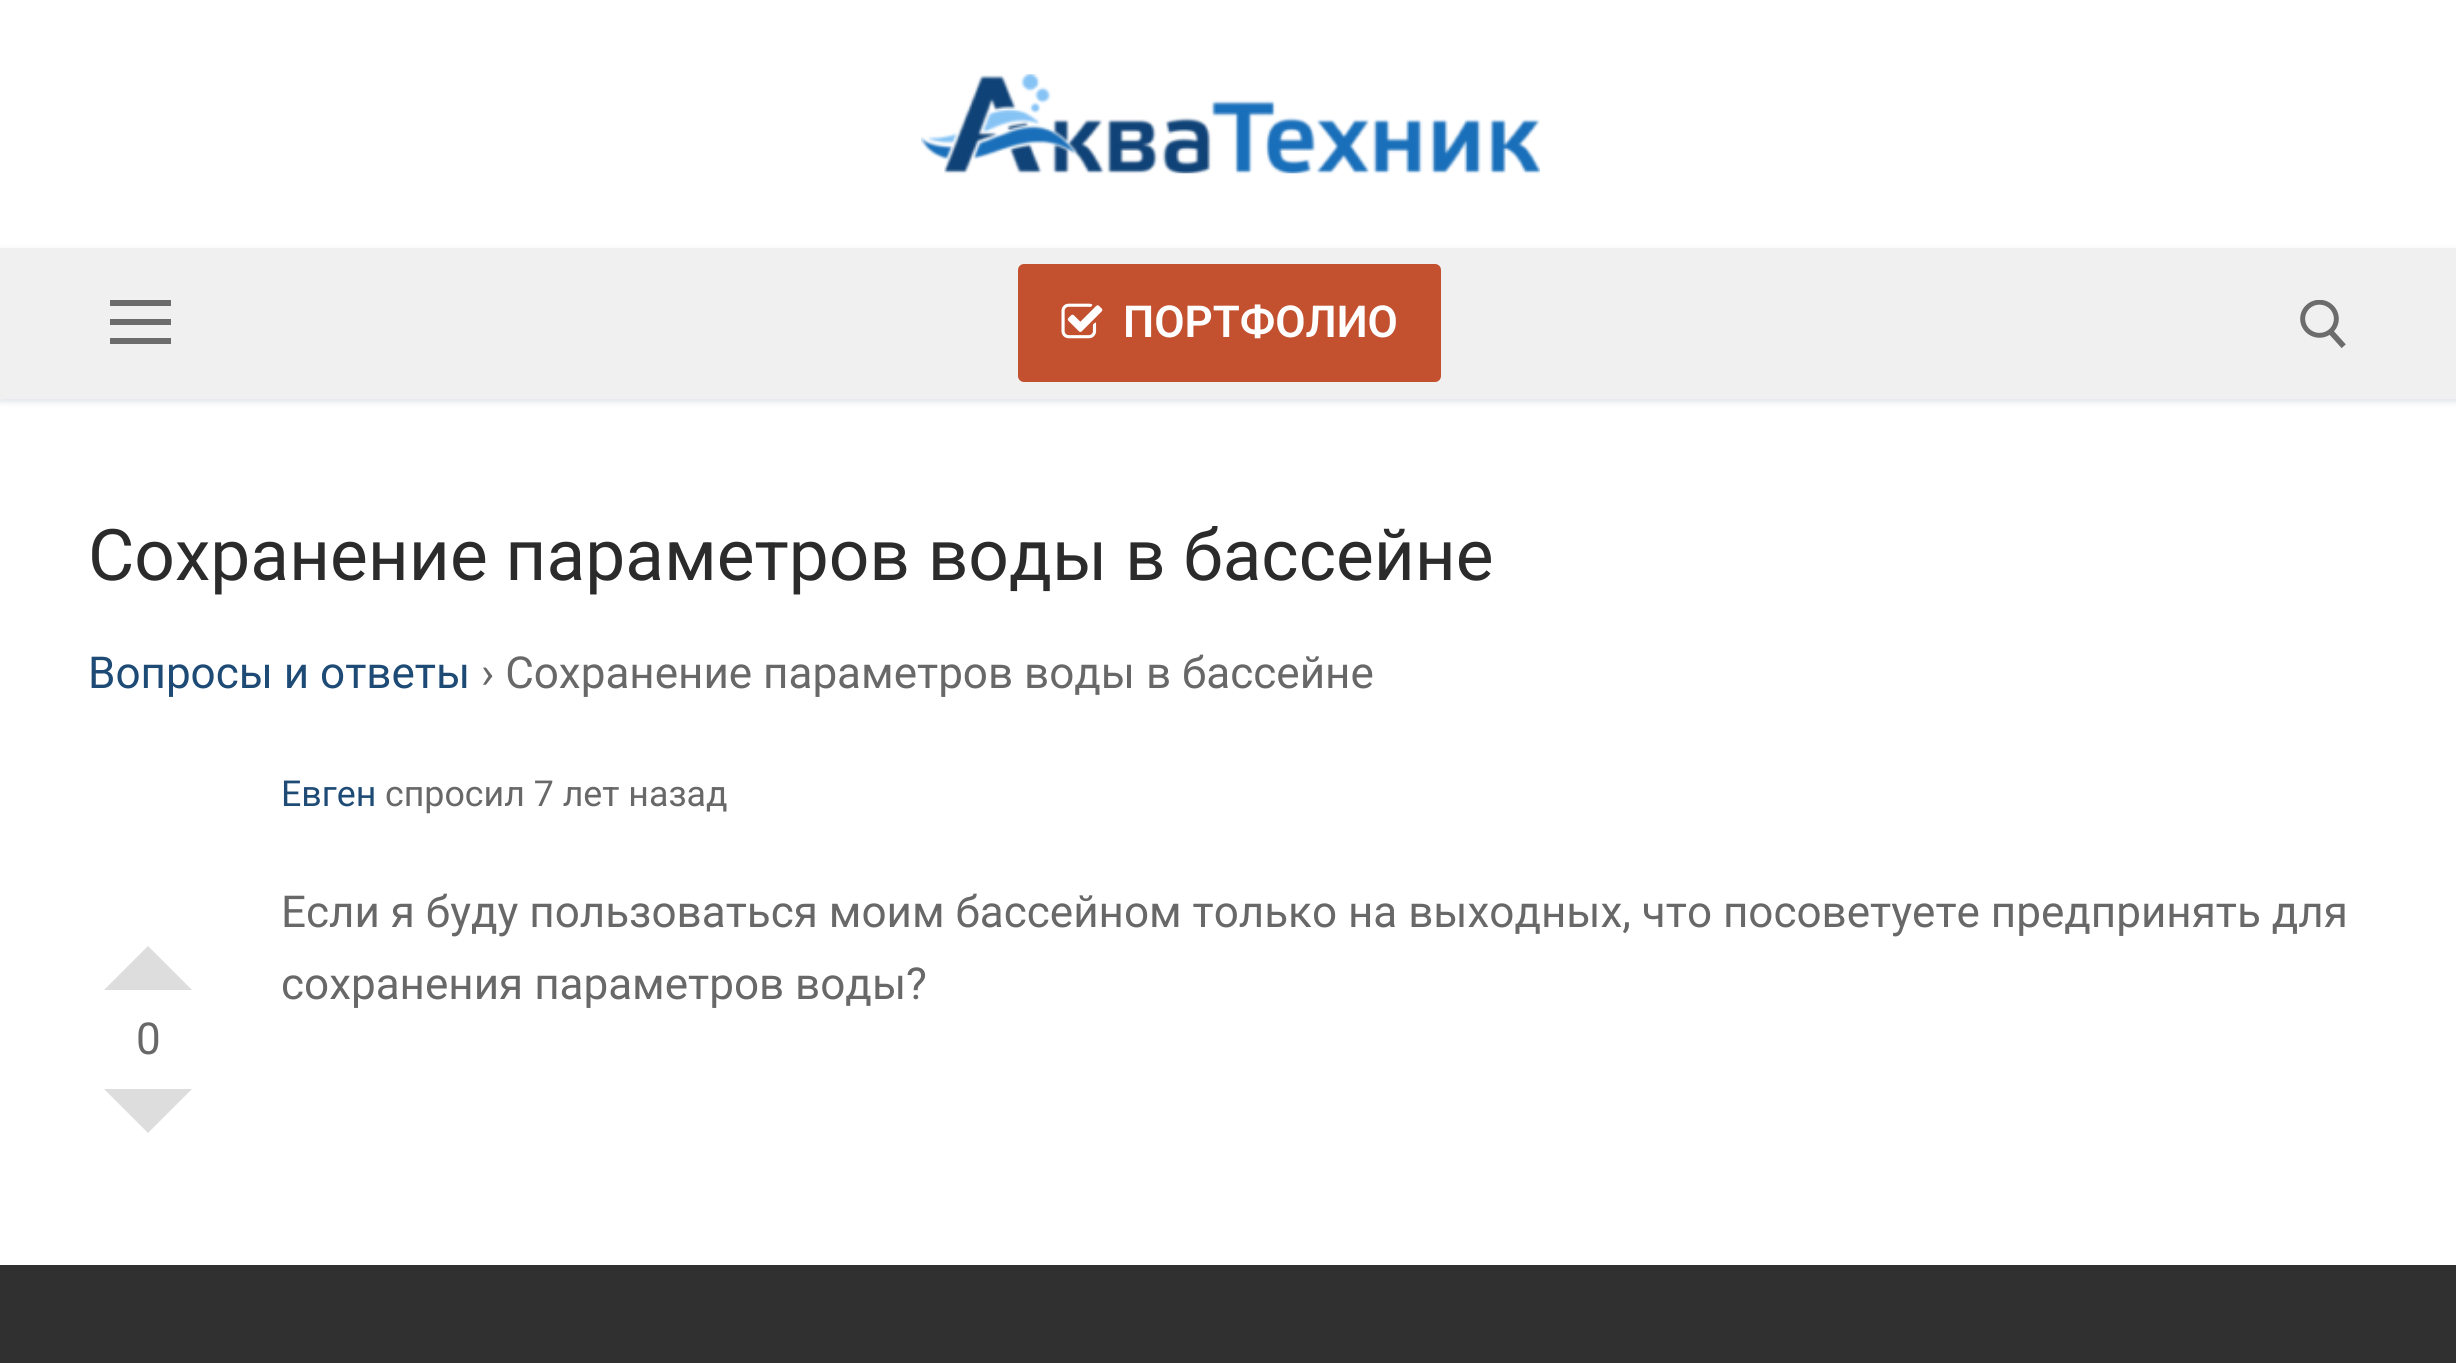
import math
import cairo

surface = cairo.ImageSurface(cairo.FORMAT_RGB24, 2456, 1363)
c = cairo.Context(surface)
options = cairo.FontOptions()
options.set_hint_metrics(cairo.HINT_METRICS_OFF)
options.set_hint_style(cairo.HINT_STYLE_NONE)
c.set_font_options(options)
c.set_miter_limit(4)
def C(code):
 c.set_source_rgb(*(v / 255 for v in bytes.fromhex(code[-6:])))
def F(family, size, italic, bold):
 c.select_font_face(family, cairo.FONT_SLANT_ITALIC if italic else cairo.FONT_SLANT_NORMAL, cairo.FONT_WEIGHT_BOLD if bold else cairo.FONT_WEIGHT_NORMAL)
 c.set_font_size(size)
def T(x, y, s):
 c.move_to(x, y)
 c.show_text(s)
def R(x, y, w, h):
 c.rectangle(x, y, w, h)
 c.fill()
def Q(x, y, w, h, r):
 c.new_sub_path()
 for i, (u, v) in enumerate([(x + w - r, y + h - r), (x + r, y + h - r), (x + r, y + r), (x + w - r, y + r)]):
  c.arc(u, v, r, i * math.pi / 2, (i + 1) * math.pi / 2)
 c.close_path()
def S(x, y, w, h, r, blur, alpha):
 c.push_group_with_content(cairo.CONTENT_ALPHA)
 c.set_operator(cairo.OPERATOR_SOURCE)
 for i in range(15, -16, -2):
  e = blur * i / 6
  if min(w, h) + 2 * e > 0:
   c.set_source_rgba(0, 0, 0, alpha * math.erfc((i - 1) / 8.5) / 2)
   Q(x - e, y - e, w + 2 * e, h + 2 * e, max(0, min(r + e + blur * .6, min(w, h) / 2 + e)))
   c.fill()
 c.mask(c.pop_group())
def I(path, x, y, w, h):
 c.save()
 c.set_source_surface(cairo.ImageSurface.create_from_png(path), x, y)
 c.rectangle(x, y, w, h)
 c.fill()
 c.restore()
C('ffffff')
c.paint()
I('1.png',921,74,619,100)
C('e1e5ea')
S(0,250,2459,152,0,3,1)
C('f0f0f0')
R(0,248,2456,151)
C('6c6c6c')
R(110,319,61,6)
R(110,300,61,6)
R(110,338,61,6)
C('c3512f')
Q(1018,264,423,118,6)
c.fill()
I('2.png',1061,303,42,36)
F('Roboto SemiBold',44,0,0)
C('ffffff')
T(1123,337,'ПОРТФОЛИО')
I('3.png',2300,300,46,48)
F('Roboto',71.2,0,0)
C('2b2b2b')
T(88,580,'Сохранение параметров воды в бассейне')
F('Roboto',44,0,0)
C('1e4b75')
T(88,688,'Вопросы и ответы')
C('686868')
T(481,688,'› Сохранение параметров воды в бассейне')
F('Roboto',35.75,0,0)
C('1e4b75')
T(281,806,'Евген')
C('686868')
T(385,806,'спросил 7 лет назад')
F('Roboto',44,0,0)
T(281,927,'Если я буду пользоваться моим бассейном только на выходных, что посоветуете предпринять для')
T(281,999,'сохранения параметров воды?')
C('dddddd')
c.new_path()
c.move_to(192,990)
c.line_to(104,990)
c.line_to(148,946)
c.close_path()
c.fill()
C('686868')
T(136,1054,'0')
C('dddddd')
c.new_path()
c.move_to(104,1089)
c.line_to(192,1089)
c.line_to(148,1133)
c.close_path()
c.fill()
C('303030')
R(0,1265,2456,98)
surface.write_to_png('o.png')
